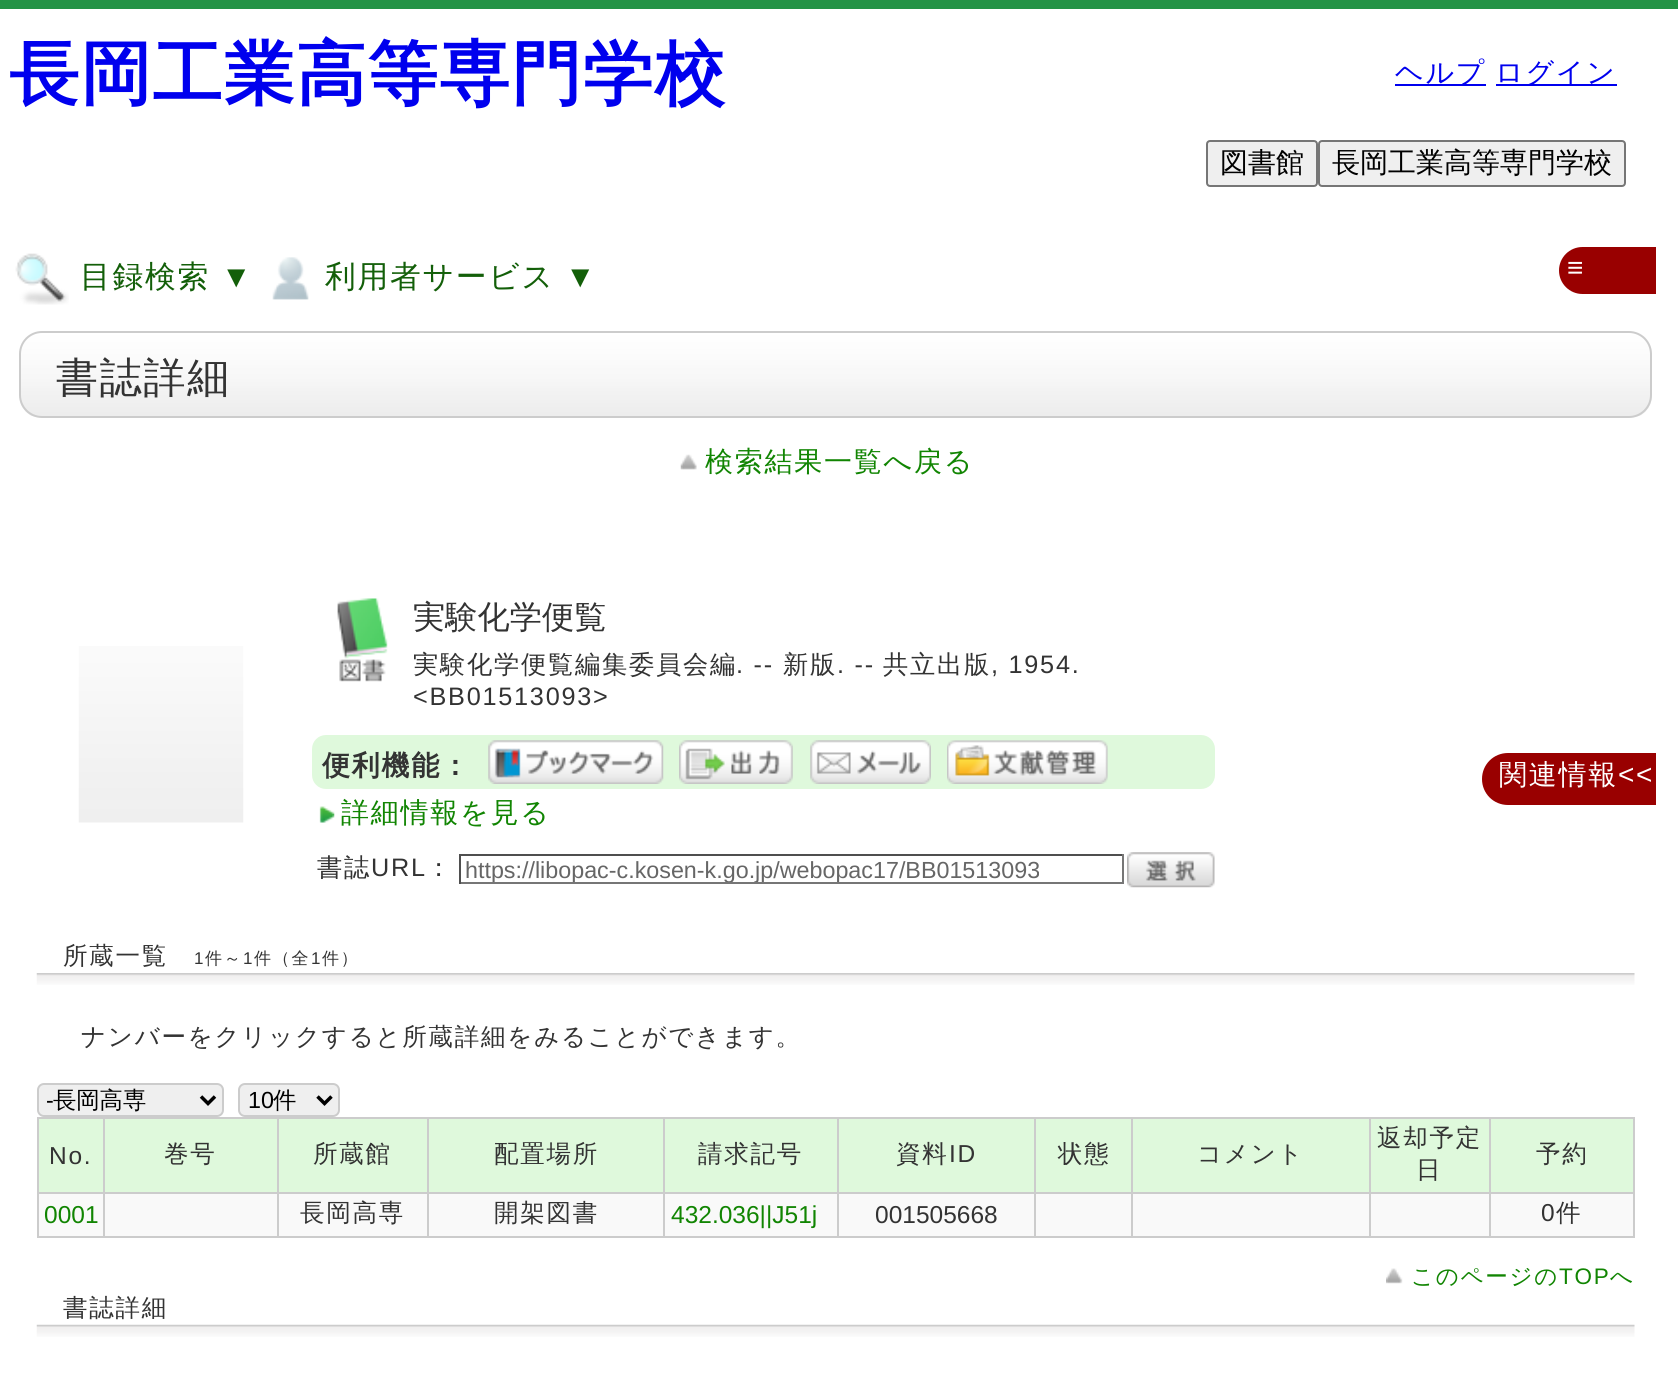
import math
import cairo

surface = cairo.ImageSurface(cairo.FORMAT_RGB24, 1678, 1379)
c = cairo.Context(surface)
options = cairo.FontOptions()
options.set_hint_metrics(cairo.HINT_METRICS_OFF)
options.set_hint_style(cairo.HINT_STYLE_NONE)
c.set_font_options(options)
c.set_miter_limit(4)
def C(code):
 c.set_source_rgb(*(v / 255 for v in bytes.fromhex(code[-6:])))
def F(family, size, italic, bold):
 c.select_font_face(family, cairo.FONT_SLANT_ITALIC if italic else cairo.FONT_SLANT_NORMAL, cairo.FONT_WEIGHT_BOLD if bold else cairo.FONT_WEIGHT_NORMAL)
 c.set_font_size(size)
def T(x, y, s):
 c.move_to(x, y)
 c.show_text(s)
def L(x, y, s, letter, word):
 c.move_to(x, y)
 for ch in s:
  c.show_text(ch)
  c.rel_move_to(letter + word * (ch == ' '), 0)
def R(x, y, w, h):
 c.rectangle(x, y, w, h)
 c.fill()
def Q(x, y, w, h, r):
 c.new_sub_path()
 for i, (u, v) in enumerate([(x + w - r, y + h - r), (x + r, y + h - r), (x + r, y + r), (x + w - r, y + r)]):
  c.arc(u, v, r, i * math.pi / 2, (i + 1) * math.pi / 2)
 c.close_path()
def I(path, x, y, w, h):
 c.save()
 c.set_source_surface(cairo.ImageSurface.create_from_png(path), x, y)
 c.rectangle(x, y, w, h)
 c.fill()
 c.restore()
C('ffffff')
c.paint()
C('249346')
R(0,0,1678,9)
F('WenQuanYi Zen Hei',70,0,1)
C('0000ee')
L(9,98,'長岡工業高等専門学校',1.75,0)
R(1395,84,91,2)
F('WenQuanYi Zen Hei Medium',28,0,0)
L(1395,82,'ヘルプ',1.75,0)
R(1496,84,121,2)
L(1495,82,'ログイン',1.75,0)
C('efefef')
Q(1207,141,110,45,3)
c.fill_preserve()
C('767676')
c.stroke()
C('000000')
T(1220,172,'図書館')
C('efefef')
Q(1319,141,306,45,3)
c.fill_preserve()
C('767676')
c.stroke()
C('000000')
T(1332,172,'長岡工業高等専門学校')
I('1.png',15,253,54,52)
F('WenQuanYi Zen Hei Medium',30.75,0,0)
C('135f09')
L(80,287,'目録検索',1.75,0)
F('Liberation Sans',30.75,0,0)
L(221,287,'▼',1.75,0)
I('2.png',272,257,37,43)
F('WenQuanYi Zen Hei Medium',30.75,0,0)
L(325,287,'利用者サービス',1.75,0)
F('Liberation Sans',30.75,0,0)
L(565,287,'▼',1.75,0)
C('990000')
c.new_path()
c.move_to(1582.5,247)
c.line_to(1656,247)
c.line_to(1656,294)
c.line_to(1582.5,294)
c.curve_to(1569.5,294,1559,283.5,1559,270.5)
c.curve_to(1559,257.5,1569.5,247,1582.5,247)
c.close_path()
c.fill()
F('Liberation Sans',28,0,0)
C('ffffff')
L(1567,277,'≡',1.75,0)
I('3.png',20,331,1632,86)
Q(20,332,1631,85,22)
C('cccccc')
c.stroke()
F('WenQuanYi Zen Hei Medium',42,0,0)
C('333333')
L(56,392,'書誌詳細',1.75,0)
I('4.png',680,454,17,16)
F('WenQuanYi Zen Hei Medium',28,0,0)
C('118502')
L(705,471,'検索結果一覧へ戻る',1.75,0)
I('5.png',78,646,166,177)
I('6.png',337,598,51,84)
F('WenQuanYi Zen Hei Medium',32.25,0,0)
C('333333')
T(413,628,'実験化学便覧')
F('WenQuanYi Zen Hei Medium',25.25,0,0)
L(413,673,'実験化学便覧編集委員会編',1.75,0)
F('Liberation Sans',25.25,0,0)
L(736,673,'. --',1.75,0)
F('WenQuanYi Zen Hei Medium',25.25,0,0)
L(783,673,'新版',1.75,0)
F('Liberation Sans',25.25,0,0)
L(837,673,'. --',1.75,0)
F('WenQuanYi Zen Hei Medium',25.25,0,0)
L(883,673,'共立出版',1.75,0)
F('Liberation Sans',25.25,0,0)
L(991,673,', 1954.',1.75,0)
L(413,705,'<BB01513093>',1.75,0)
C('dff9dc')
Q(312,735,903,54,14)
c.fill()
F('WenQuanYi Zen Hei',28,0,1)
C('333333')
L(322,775,'便利機能：',1.75,0)
I('7.png',488,740,176,44)
I('8.png',679,740,114,44)
I('9.png',810,740,121,44)
I('10.png',947,740,161,44)
I('11.png',319,806,16,17)
F('WenQuanYi Zen Hei Medium',28,0,0)
C('118502')
L(341,822,'詳細情報を見る',1.75,0)
F('WenQuanYi Zen Hei Medium',25.25,0,0)
C('333333')
L(317,876,'書誌',1.75,0)
F('Liberation Sans',25.25,0,0)
L(371,876,'URL',1.75,0)
F('WenQuanYi Zen Hei Medium',25.25,0,0)
L(426,876,'：',1.75,0)
C('4f4f4f')
R(459,854,665,2)
C('767676')
R(1122,854,2,30)
R(459,882,665,2)
C('4f4f4f')
R(459,854,2,30)
c.save()
c.rectangle(466,856,656,26)
c.clip()
F('Liberation Sans',23.3,0,0)
C('666666')
T(465,878,'https://libopac-c.kosen-k.go.jp/webopac17/BB01513093')
c.restore()
I('12.png',1127,852,88,36)
I('13.png',36,973,1599,12)
F('WenQuanYi Zen Hei Medium',24.5,0,0)
C('333333')
L(63,964,'所蔵一覧',1.75,0)
F('Liberation Sans',17,0,0)
L(194,964,'1',1.75,0)
F('WenQuanYi Zen Hei Medium',17,0,0)
L(205,964,'件～',1.75,0)
F('Liberation Sans',17,0,0)
L(243,964,'1',1.75,0)
F('WenQuanYi Zen Hei Medium',17,0,0)
L(254,964,'件（全',1.75,0)
F('Liberation Sans',17,0,0)
L(311,964,'1',1.75,0)
F('WenQuanYi Zen Hei Medium',17,0,0)
L(322,964,'件）',1.75,0)
F('WenQuanYi Zen Hei Medium',24.5,0,0)
L(81,1045,'ナンバーをクリックすると所蔵詳細をみることができます。',1.75,0)
C('efefef')
Q(38,1084,185,32,6)
c.fill_preserve()
C('cccccc')
c.stroke()
c.new_path()
c.move_to(201,1096.5)
c.line_to(208,1103.5)
c.line_to(215,1096.5)
C('000000')
c.set_line_width(3.5)
c.stroke()
F('Liberation Sans',23.3,0,0)
T(46,1108,'-')
F('WenQuanYi Zen Hei Medium',23.3,0,0)
T(53,1108,'長岡高専')
C('efefef')
Q(239,1084,100,32,6)
c.fill_preserve()
C('cccccc')
c.set_line_width(2)
c.stroke()
c.new_path()
c.move_to(317.5,1096.5)
c.line_to(324.5,1103.5)
c.line_to(331.5,1096.5)
C('000000')
c.set_line_width(3.5)
c.stroke()
F('Liberation Sans',23.3,0,0)
T(248,1108,'10')
F('WenQuanYi Zen Hei Medium',23.3,0,0)
T(273,1108,'件')
C('cccccc')
R(37,1117,1598,2)
R(1633,1117,2,120)
R(37,1236,1598,2)
R(37,1117,2,120)
C('dff9dc')
R(39,1119,64,73)
F('Liberation Sans',24.5,0,0)
C('333333')
L(49,1164,'No.',1.75,0)
C('dff9dc')
R(105,1119,172,73)
C('cccccc')
R(1489,1192,146,2)
R(1489,1192,2,45)
R(1369,1192,122,2)
R(1369,1192,2,45)
R(1131,1192,239,2)
R(1131,1192,2,45)
R(1034,1192,98,2)
R(1034,1192,2,45)
R(837,1192,199,2)
R(837,1192,2,45)
R(663,1192,175,2)
R(663,1192,2,45)
R(427,1192,238,2)
R(427,1192,2,45)
R(277,1192,152,2)
R(277,1192,2,45)
R(103,1192,175,2)
R(103,1192,2,45)
R(37,1192,68,2)
R(103,1117,2,77)
F('WenQuanYi Zen Hei Medium',24.5,0,0)
C('333333')
L(164,1162,'巻号',1.75,0)
C('dff9dc')
R(279,1119,148,73)
C('cccccc')
R(277,1117,2,77)
C('333333')
L(313,1162,'所蔵館',1.75,0)
C('dff9dc')
R(429,1119,234,73)
C('cccccc')
R(427,1117,2,77)
C('333333')
L(494,1162,'配置場所',1.75,0)
C('dff9dc')
R(665,1119,172,73)
C('cccccc')
R(663,1117,2,77)
C('333333')
L(698,1162,'請求記号',1.75,0)
C('dff9dc')
R(839,1119,195,73)
C('cccccc')
R(837,1117,2,77)
C('333333')
L(896,1162,'資料',1.75,0)
F('Liberation Sans',24.5,0,0)
L(949,1162,'ID',1.75,0)
C('dff9dc')
R(1036,1119,95,73)
C('cccccc')
R(1034,1117,2,77)
F('WenQuanYi Zen Hei Medium',24.5,0,0)
C('333333')
L(1058,1162,'状態',1.75,0)
C('dff9dc')
R(1133,1119,236,73)
C('cccccc')
R(1131,1117,2,77)
C('333333')
L(1197,1162,'コメント',1.75,0)
C('dff9dc')
R(1371,1119,118,73)
C('cccccc')
R(1369,1117,2,77)
C('333333')
L(1377,1146,'返却予定',1.75,0)
L(1416,1178,'日',1.75,0)
C('dff9dc')
R(1491,1119,142,73)
C('cccccc')
R(1489,1117,2,77)
C('333333')
L(1536,1162,'予約',1.75,0)
C('f9f9f9')
R(39,1194,64,42)
F('Liberation Sans',24.5,0,0)
C('118502')
T(44,1223,'0001')
C('f9f9f9')
R(105,1194,172,42)
R(279,1194,148,42)
F('WenQuanYi Zen Hei Medium',24.5,0,0)
C('333333')
L(300,1221,'長岡高専',1.75,0)
C('f9f9f9')
R(429,1194,234,42)
C('333333')
L(494,1221,'開架図書',1.75,0)
C('f9f9f9')
R(665,1194,172,42)
F('Liberation Sans',24.5,0,0)
C('118502')
T(671,1223,'432.036||J51j')
C('f9f9f9')
R(839,1194,195,42)
C('333333')
T(875,1223,'001505668')
C('f9f9f9')
R(1036,1194,95,42)
R(1133,1194,236,42)
R(1371,1194,118,42)
R(1491,1194,142,42)
C('333333')
L(1541,1221,'0',1.75,0)
F('WenQuanYi Zen Hei Medium',24.5,0,0)
L(1556,1221,'件',1.75,0)
I('14.png',1386,1268,17,16)
F('WenQuanYi Zen Hei Medium',22.5,0,0)
C('118502')
L(1411,1284,'このページの',1.75,0)
F('Liberation Sans',22.5,0,0)
L(1559,1284,'TOP',1.75,0)
F('WenQuanYi Zen Hei Medium',22.5,0,0)
L(1610,1284,'へ',1.75,0)
I('15.png',36,1324,1599,13)
F('WenQuanYi Zen Hei Medium',24.5,0,0)
C('333333')
L(63,1316,'書誌詳細',1.75,0)
C('990000')
c.new_path()
c.move_to(1508,753)
c.line_to(1656,753)
c.line_to(1656,805)
c.line_to(1508,805)
c.curve_to(1493.5,805,1482,793.5,1482,779)
c.curve_to(1482,764.5,1493.5,753,1508,753)
c.close_path()
c.fill()
F('WenQuanYi Zen Hei Medium',28,0,0)
C('ffffff')
L(1499,784,'関連情報',1.75,0)
F('Liberation Sans',28,0,0)
L(1618,784,'<<',1.75,0)
surface.write_to_png('o.png')
